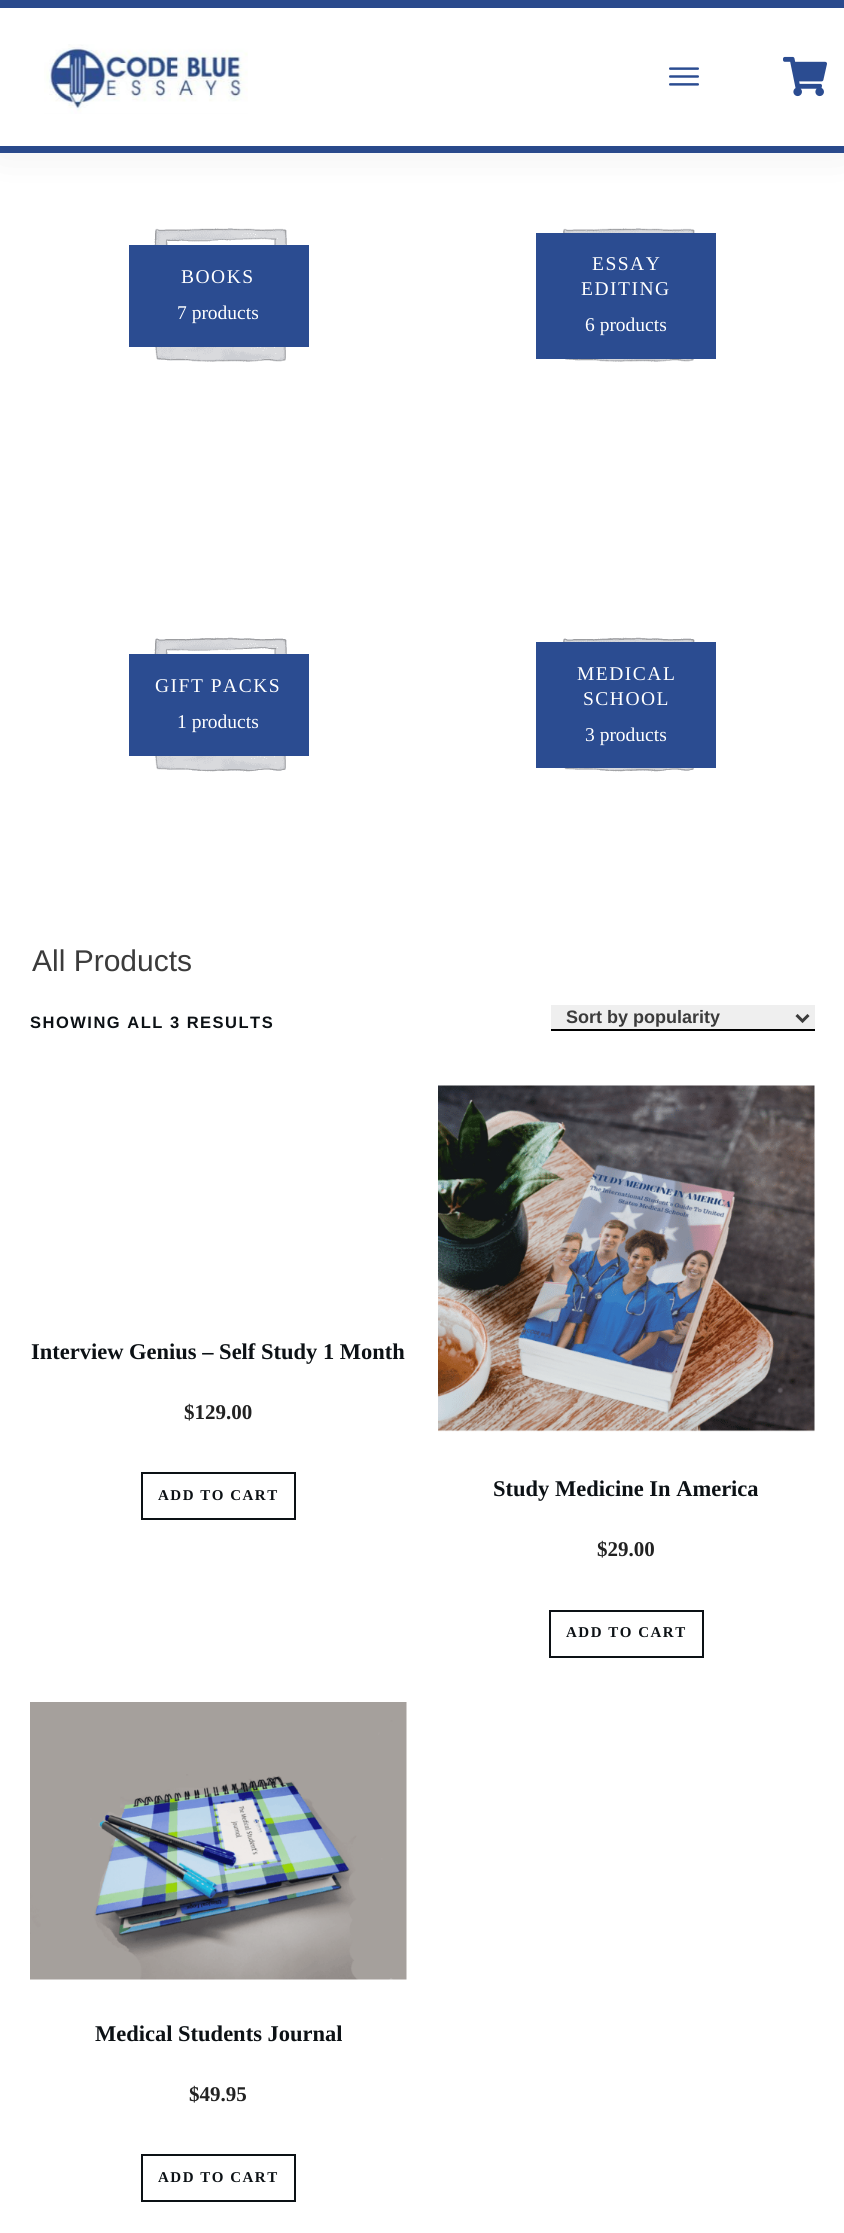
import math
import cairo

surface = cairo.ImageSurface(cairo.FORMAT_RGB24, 844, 2233)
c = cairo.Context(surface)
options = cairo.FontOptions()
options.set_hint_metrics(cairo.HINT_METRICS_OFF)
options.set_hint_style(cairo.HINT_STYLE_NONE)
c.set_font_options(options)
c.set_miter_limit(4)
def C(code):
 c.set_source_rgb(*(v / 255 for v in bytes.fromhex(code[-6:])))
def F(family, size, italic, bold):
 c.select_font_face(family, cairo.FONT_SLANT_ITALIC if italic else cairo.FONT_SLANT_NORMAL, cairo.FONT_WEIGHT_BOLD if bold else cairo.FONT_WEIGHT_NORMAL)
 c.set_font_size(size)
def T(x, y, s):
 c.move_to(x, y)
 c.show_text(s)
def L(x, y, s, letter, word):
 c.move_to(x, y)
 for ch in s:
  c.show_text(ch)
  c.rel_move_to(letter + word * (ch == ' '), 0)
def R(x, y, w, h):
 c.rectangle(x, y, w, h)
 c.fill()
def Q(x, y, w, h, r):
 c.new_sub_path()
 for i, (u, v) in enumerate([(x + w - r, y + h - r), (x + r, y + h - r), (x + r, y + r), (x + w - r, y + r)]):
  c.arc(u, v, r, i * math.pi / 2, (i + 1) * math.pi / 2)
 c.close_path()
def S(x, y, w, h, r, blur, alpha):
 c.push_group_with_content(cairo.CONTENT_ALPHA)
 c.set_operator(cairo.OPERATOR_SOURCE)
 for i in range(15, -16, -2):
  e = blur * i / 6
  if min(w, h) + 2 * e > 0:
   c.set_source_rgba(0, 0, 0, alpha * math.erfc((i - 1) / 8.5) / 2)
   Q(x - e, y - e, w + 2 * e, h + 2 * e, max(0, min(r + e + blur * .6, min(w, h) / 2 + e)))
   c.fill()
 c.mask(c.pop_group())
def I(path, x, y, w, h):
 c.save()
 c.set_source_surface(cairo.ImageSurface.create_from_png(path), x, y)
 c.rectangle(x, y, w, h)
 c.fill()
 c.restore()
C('ffffff')
c.paint()
C('2b4c91')
R(0,0,844,8)
R(0,146,844,7)
C('000000')
S(0,11,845,138,0,22.5,.08)
C('ffffff')
R(0,8,844,138)
I('1.png',44,44,204,70)
I('2.png',669,67,30,19)
I('3.png',783,56,44,41)
I('4.png',154,228,133,134)
C('2b4c91')
R(129,245,180,102)
F('Liberation Serif',19.5,0,0)
C('ffffff')
L(181,283,'BOOKS',1.5,0)
T(177,319,'7 products')
I('4.png',562,228,133,134)
C('2b4c91')
R(536,233,180,126)
C('ffffff')
L(592,270,'ESSAY',1.5,0)
L(581,295,'EDITING',1.5,0)
T(585,331,'6 products')
I('5.png',154,637,133,135)
C('2b4c91')
R(129,654,180,102)
C('ffffff')
L(155,692,'GIFT PACKS',1.5,0)
T(177,728,'1 products')
I('5.png',562,637,133,135)
C('2b4c91')
R(536,642,180,126)
C('ffffff')
L(577,680,'MEDICAL',1.5,0)
L(583,705,'SCHOOL',1.5,0)
T(585,741,'3 products')
F('Liberation Sans',30,0,0)
C('3b3b3b')
T(32,971,'All Products')
F('Liberation Sans',16.5,0,1)
C('0c1115')
L(30,1028,'SHOWING ALL 3 RESULTS',1.5,0)
C('efefef')
R(551,1005,264,24)
C('000000')
R(551,1029,264,2)
c.new_path()
c.move_to(796.5,1015)
c.line_to(802.5,1021)
c.line_to(808.5,1015)
C('3b3b3b')
c.set_line_width(3)
c.stroke()
F('Liberation Sans',18,0,1)
T(566,1023,'Sort by popularity')
F('Liberation Serif',22.5,0,1)
C('0c1115')
T(31,1359,'Interview Genius – Self Study 1 Month')
F('Liberation Serif',21,0,1)
C('222222')
T(184,1419,'$129.00')
c.rectangle(142,1473,153,46)
C('0c1115')
c.set_line_width(2)
c.stroke()
F('Liberation Serif',15,0,1)
L(158,1500,'ADD TO CART',1.5,0)
I('6.png',438,1085,377,347)
F('Liberation Serif',22.5,0,1)
T(493,1496,'Study Medicine In America')
F('Liberation Serif',21,0,1)
C('222222')
T(597,1556,'$29.00')
c.rectangle(550,1611,153,46)
C('0c1115')
c.stroke()
F('Liberation Serif',15,0,1)
L(566,1637,'ADD TO CART',1.5,0)
I('7.png',30,1702,377,278)
F('Liberation Serif',22.5,0,1)
T(95,2041,'Medical Students Journal')
F('Liberation Serif',21,0,1)
C('222222')
T(189,2101,'$49.95')
c.rectangle(142,2155,153,46)
C('0c1115')
c.stroke()
F('Liberation Serif',15,0,1)
L(158,2182,'ADD TO CART',1.5,0)
surface.write_to_png('o.png')
